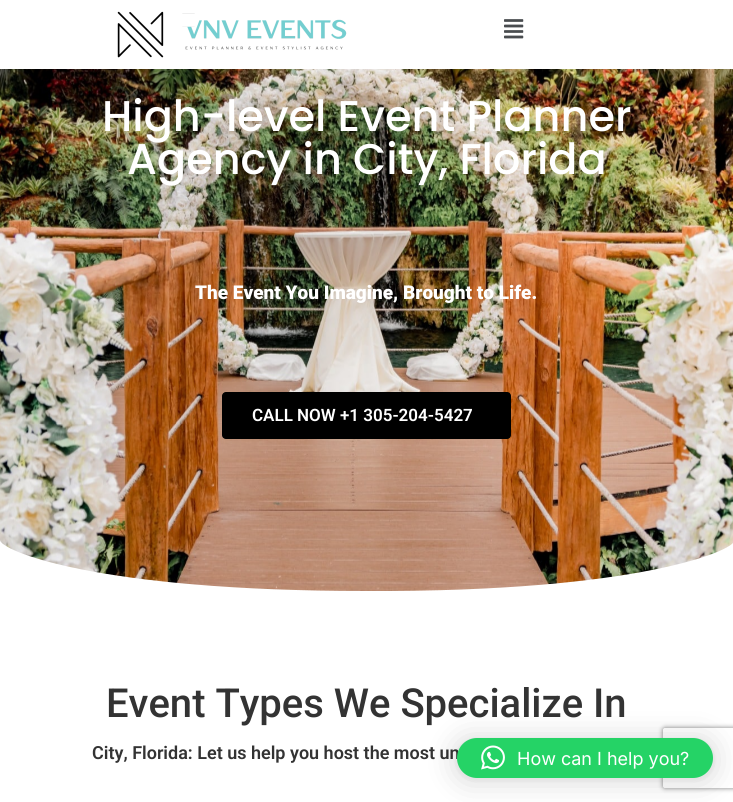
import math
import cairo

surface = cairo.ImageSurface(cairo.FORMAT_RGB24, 733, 802)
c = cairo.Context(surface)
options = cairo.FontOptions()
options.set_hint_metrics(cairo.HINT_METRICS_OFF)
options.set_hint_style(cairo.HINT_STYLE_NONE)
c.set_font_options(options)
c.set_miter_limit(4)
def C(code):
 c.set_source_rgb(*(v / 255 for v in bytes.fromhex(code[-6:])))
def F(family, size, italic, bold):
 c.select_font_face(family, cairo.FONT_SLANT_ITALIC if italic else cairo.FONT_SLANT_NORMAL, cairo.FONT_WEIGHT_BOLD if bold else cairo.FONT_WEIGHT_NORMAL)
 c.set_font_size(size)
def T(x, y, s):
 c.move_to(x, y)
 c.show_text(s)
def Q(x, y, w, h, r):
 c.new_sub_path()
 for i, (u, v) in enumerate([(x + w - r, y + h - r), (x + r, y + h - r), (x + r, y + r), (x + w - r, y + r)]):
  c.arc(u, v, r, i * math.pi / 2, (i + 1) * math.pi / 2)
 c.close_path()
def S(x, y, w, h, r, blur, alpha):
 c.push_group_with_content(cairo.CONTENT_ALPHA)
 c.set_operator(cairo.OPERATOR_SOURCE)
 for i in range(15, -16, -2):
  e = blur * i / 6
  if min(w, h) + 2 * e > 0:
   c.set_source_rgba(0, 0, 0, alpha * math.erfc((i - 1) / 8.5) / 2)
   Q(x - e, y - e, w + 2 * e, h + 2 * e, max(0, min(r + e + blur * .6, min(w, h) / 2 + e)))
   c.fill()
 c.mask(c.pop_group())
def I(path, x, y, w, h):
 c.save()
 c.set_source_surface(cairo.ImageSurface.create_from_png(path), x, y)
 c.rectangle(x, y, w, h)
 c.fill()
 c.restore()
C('ffffff')
c.paint()
I('1.png',117,11,230,47)
I('2.png',504,19,20,20)
I('3.png',0,69,733,522)
F('Poppins Medium',43,0,0)
C('ffffff')
T(102,131,'High-level Event Planner')
T(127,174,'Agency in City, Florida')
F('Roboto Black',19,0,0)
T(195,299,'The Event You Imagine, Brought to Life.')
C('000000')
Q(222,392,289,47,4)
c.fill()
F('Roboto SemiBold',17,0,0)
C('ffffff')
T(252,421,'CALL NOW +1 305-204-5427')
c.new_path()
c.move_to(367,591)
c.curve_to(93,591,0,550,0,540)
c.line_to(0,593)
c.line_to(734,593)
c.line_to(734,541)
c.curve_to(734,550,641,592,367,591)
c.close_path()
c.fill()
F('Roboto Medium',40,0,0)
C('333333')
T(106,717,'Event Types We Specialize In')
F('Roboto SemiBold',18,0,0)
T(92,759,'City, Florida: Let us help you host the most un')
c.save()
c.set_fill_rule(cairo.FILL_RULE_EVEN_ODD)
c.new_path()
c.move_to(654,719)
c.line_to(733,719)
c.line_to(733,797)
c.line_to(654,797)
c.close_path()
c.move_to(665,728)
c.line_to(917,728)
c.curve_to(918,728,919,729,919,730)
c.line_to(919,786)
c.curve_to(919,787,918,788,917,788)
c.line_to(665,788)
c.curve_to(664,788,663,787,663,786)
c.line_to(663,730)
c.curve_to(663,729,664,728,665,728)
c.close_path()
c.clip()
C('808080')
S(663,728,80,60,2,2.5,1)
c.restore()
C('000000')
S(457,740,256,40,20,16,.16)
S(457,739,256,40,20,3,.06)
C('25d366')
Q(457,738,256,40,20)
c.fill()
I('4.png',481,745,24,25)
F('Inter',18,0,0)
C('ffffff')
T(517,765,'How can I help you?')
surface.write_to_png('o.png')
